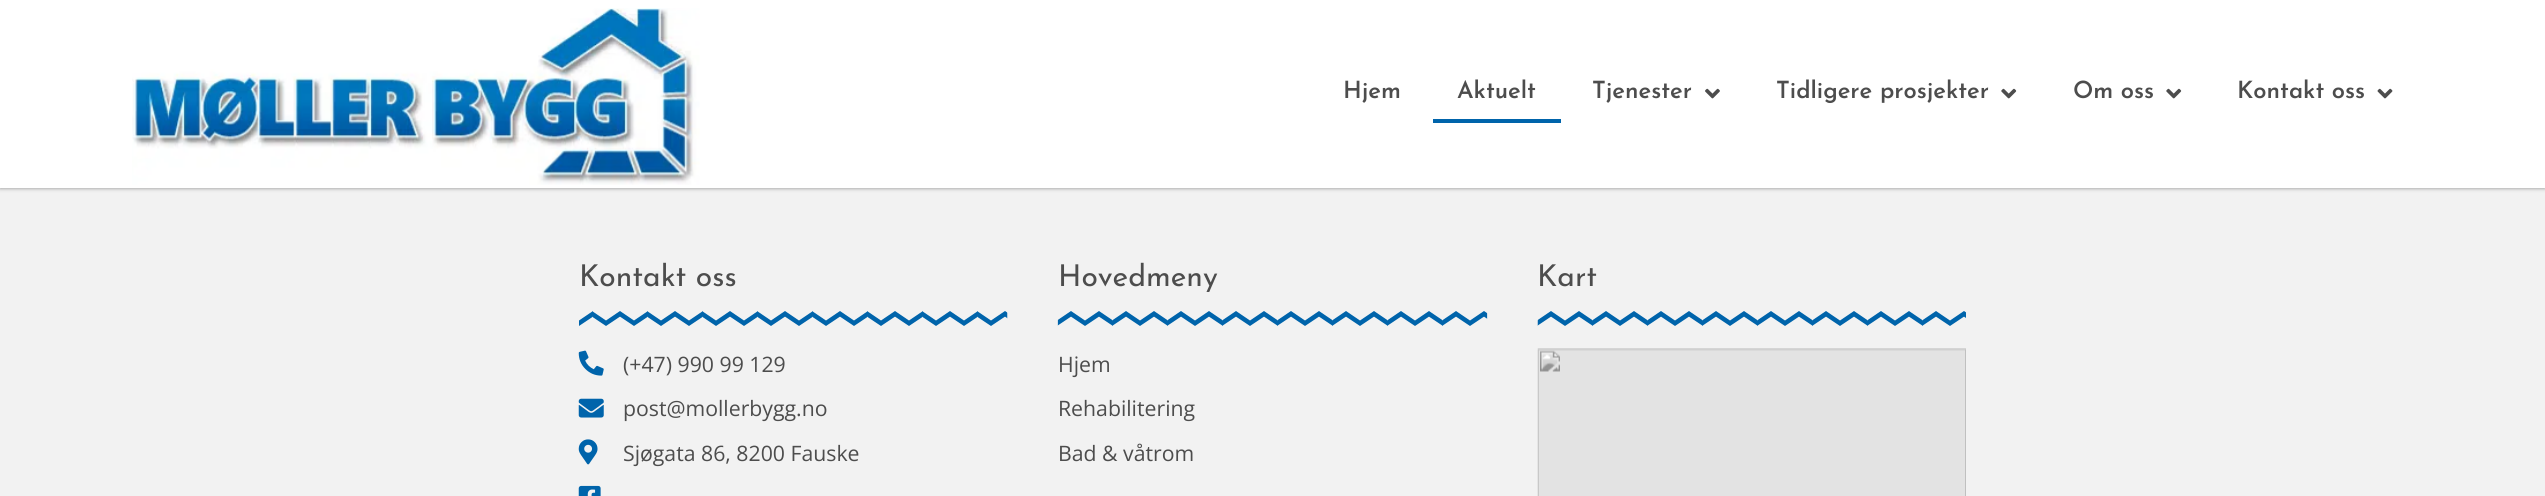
import math
import cairo

surface = cairo.ImageSurface(cairo.FORMAT_RGB24, 2545, 496)
c = cairo.Context(surface)
options = cairo.FontOptions()
options.set_hint_metrics(cairo.HINT_METRICS_OFF)
options.set_hint_style(cairo.HINT_STYLE_NONE)
c.set_font_options(options)
c.set_miter_limit(4)
def C(code):
 c.set_source_rgb(*(v / 255 for v in bytes.fromhex(code[-6:])))
def F(family, size, italic, bold):
 c.select_font_face(family, cairo.FONT_SLANT_ITALIC if italic else cairo.FONT_SLANT_NORMAL, cairo.FONT_WEIGHT_BOLD if bold else cairo.FONT_WEIGHT_NORMAL)
 c.set_font_size(size)
def T(x, y, s):
 c.move_to(x, y)
 c.show_text(s)
def R(x, y, w, h):
 c.rectangle(x, y, w, h)
 c.fill()
def Q(x, y, w, h, r):
 c.new_sub_path()
 for i, (u, v) in enumerate([(x + w - r, y + h - r), (x + r, y + h - r), (x + r, y + r), (x + w - r, y + r)]):
  c.arc(u, v, r, i * math.pi / 2, (i + 1) * math.pi / 2)
 c.close_path()
def S(x, y, w, h, r, blur, alpha):
 c.push_group_with_content(cairo.CONTENT_ALPHA)
 c.set_operator(cairo.OPERATOR_SOURCE)
 for i in range(15, -16, -2):
  e = blur * i / 6
  if min(w, h) + 2 * e > 0:
   c.set_source_rgba(0, 0, 0, alpha * math.erfc((i - 1) / 8.5) / 2)
   Q(x - e, y - e, w + 2 * e, h + 2 * e, max(0, min(r + e + blur * .6, min(w, h) / 2 + e)))
   c.fill()
 c.mask(c.pop_group())
def I(path, x, y, w, h):
 c.save()
 c.set_source_surface(cairo.ImageSurface.create_from_png(path), x, y)
 c.rectangle(x, y, w, h)
 c.fill()
 c.restore()
C('f2f2f2')
c.paint()
C('f9f9f9')
c.new_path()
c.move_to(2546,189)
c.line_to(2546,183)
c.line_to(1272,170)
c.line_to(-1,183)
c.line_to(-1,189)
c.close_path()
c.fill()
C('000000')
S(0,0,2545,188,0,2,.5)
C('ffffff')
R(0,0,2545,188)
I('1.png',132,8,568,177)
F('Josefin Sans SemiBold',23.75,0,0)
C('4d4d4d')
T(1343,98,'Hjem')
T(1457,98,'Aktuelt')
C('0064ab')
R(1433,119,128,4)
C('4d4d4d')
T(1592,98,'Tjenester')
I('2.png',1705,88,15,11)
T(1776,98,'Tidligere prosjekter')
I('3.png',2001,88,16,11)
T(2073,98,'Om oss')
I('3.png',2166,88,16,11)
T(2237,98,'Kontakt oss')
I('4.png',2377,88,16,11)
F('Josefin Sans',30,0,0)
T(579,286,'Kontakt oss')
I('5.png',579,311,429,15)
I('6.png',578,350,26,26)
F('Open Sans',21.25,0,0)
T(623,372,'(+47) 990 99 129')
I('7.png',578,398,26,20)
T(623,416,'post@mollerbygg.no')
I('8.png',578,439,20,26)
T(623,461,'Sjøgata 86, 8200 Fauske')
I('9.png',578,485,23,11)
F('Josefin Sans',30,0,0)
T(1058,286,'Hovedmeny')
I('10.png',1057,311,431,15)
F('Open Sans',21.25,0,0)
T(1058,372,'Hjem')
T(1058,416,'Rehabilitering')
T(1058,461,'Bad & våtrom')
F('Josefin Sans',30,0,0)
T(1537,286,'Kart')
I('11.png',1537,311,429,15)
I('12.png',1537,348,429,148)
surface.write_to_png('o.png')
